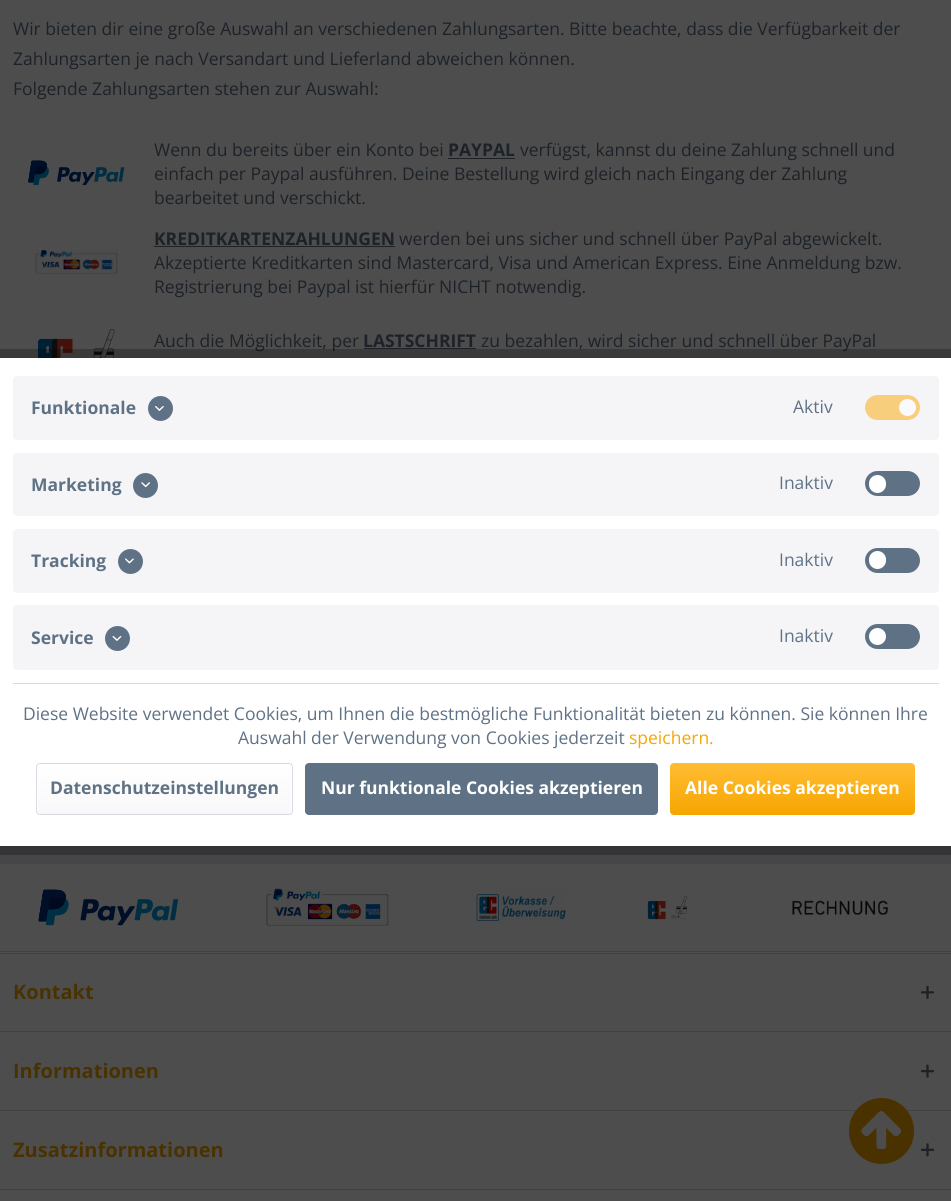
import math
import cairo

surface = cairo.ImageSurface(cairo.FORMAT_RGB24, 951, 1201)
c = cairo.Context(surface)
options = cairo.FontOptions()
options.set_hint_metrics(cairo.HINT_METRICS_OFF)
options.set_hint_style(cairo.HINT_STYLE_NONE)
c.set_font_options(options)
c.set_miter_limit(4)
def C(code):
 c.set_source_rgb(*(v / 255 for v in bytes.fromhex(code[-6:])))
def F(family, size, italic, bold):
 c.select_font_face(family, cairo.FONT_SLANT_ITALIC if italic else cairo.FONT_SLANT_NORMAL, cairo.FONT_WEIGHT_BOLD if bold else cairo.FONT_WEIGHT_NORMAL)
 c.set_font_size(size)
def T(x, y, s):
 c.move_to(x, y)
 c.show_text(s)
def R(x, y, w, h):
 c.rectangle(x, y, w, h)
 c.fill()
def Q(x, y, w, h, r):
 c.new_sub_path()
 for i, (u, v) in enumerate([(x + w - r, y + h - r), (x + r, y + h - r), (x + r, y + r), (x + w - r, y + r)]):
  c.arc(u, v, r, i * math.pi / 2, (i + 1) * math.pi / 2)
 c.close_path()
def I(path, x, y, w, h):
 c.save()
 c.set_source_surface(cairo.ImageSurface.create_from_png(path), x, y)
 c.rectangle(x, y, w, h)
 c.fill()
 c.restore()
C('464648')
c.paint()
C('4d4d4d')
R(0,0,951,358)
F('Open Sans',17.5,0,0)
C('1d2228')
T(13,35,'Wir bieten dir eine große Auswahl an verschiedenen Zahlungsarten. Bitte beachte, dass die Verfügbarkeit der')
T(13,65,'Zahlungsarten je nach Versandart und Lieferland abweichen können.')
T(13,95,'Folgende Zahlungsarten stehen zur Auswahl:')
I('1.png',28,160,97,26)
T(154,156,'Wenn du bereits über ein Konto bei')
F('Open Sans',17.5,0,1)
T(448,156,'PAYPAL')
R(448,158,67,1)
F('Open Sans',17.5,0,0)
T(520,156,'verfügst, kannst du deine Zahlung schnell und')
T(154,180,'einfach per Paypal ausführen. Deine Bestellung wird gleich nach Eingang der Zahlung')
T(154,204,'bearbeitet und verschickt.')
I('2.png',35,250,83,24)
F('Open Sans',17.5,0,1)
T(154,245,'KREDITKARTENZAHLUNGEN')
R(154,246,241,1)
F('Open Sans',17.5,0,0)
T(399,245,'werden bei uns sicher und schnell über PayPal abgewickelt.')
T(154,269,'Akzeptierte Kreditkarten sind Mastercard, Visa und American Express. Eine Anmeldung bzw.')
T(154,293,'Registrierung bei Paypal ist hierfür NICHT notwendig.')
I('3.png',38,329,77,29)
T(154,347,'Auch die Möglichkeit, per')
F('Open Sans',17.5,0,1)
T(363,347,'LASTSCHRIFT')
R(364,348,112,1)
F('Open Sans',17.5,0,0)
T(481,347,'zu bezahlen, wird sicher und schnell über PayPal')
C('4d4d4d')
R(0,864,951,337)
C('414145')
R(0,951,951,1)
I('4.png',38,889,140,37)
I('5.png',266,888,123,38)
I('6.png',476,894,90,27)
I('7.png',647,895,41,25)
I('8.png',792,900,97,16)
R(0,953,951,1)
F('Open Sans',20,0,1)
C('4a3200')
T(13,999,'Kontakt')
I('9.png',921,985,13,14)
C('414145')
R(0,1031,951,1)
C('4a3200')
T(13,1078,'Informationen')
I('10.png',921,1064,13,14)
C('414145')
R(0,1110,951,1)
C('4a3200')
T(13,1157,'Zusatzinformationen')
I('11.png',921,1143,13,14)
C('414145')
R(0,1189,951,1)
c.rectangle(-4.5,353.5,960,497)
c.set_source_rgba(0,0,0,0.25)
c.set_line_width(9)
c.stroke()
C('ffffff')
R(0,358,951,488)
C('dadae5')
R(13,683,926,1)
C('f5f5f8')
Q(13,376,926,64,4)
c.fill()
F('Open Sans',17.5,0,1)
C('5f7285')
T(31,414,'Funktionale')
c.new_path()
c.arc(160.5,408.5,12.5,0,2 * math.pi)
c.fill()
I('12.png',155,406,9,5)
F('Open Sans',17.5,0,0)
T(793,413,'Aktiv')
C('f6ce7c')
Q(865,395,55,25,12.5)
c.fill()
C('fafafc')
c.arc(907.5,407.5,8.5,0,2 * math.pi)
c.fill()
C('f5f5f8')
Q(13,453,926,63,4)
c.fill()
F('Open Sans',17.5,0,1)
C('5f7285')
T(31,491,'Marketing')
c.new_path()
c.arc(145.5,485.5,12.5,0,2 * math.pi)
c.fill()
I('13.png',141,482,9,6)
F('Open Sans',17.5,0,0)
T(779,489,'Inaktiv')
Q(865,471,55,25,12.5)
c.fill()
C('ffffff')
Q(869,475,17,18,8.5)
c.fill()
C('f5f5f8')
Q(13,529,926,64,4)
c.fill()
F('Open Sans',17.5,0,1)
C('5f7285')
T(31,567,'Tracking')
c.new_path()
c.arc(130.5,561.5,12.5,0,2 * math.pi)
c.fill()
I('14.png',125,558,9,6)
F('Open Sans',17.5,0,0)
T(779,566,'Inaktiv')
Q(865,548,55,25,12.5)
c.fill()
C('ffffff')
Q(869,551,17,18,8.5)
c.fill()
C('f5f5f8')
Q(13,605,926,65,4)
c.fill()
F('Open Sans',17.5,0,1)
C('5f7285')
T(31,644,'Service')
c.new_path()
c.arc(117.5,638.5,12.5,0,2 * math.pi)
c.fill()
I('15.png',112,636,10,5)
F('Open Sans',17.5,0,0)
T(779,642,'Inaktiv')
Q(865,624,55,25,12.5)
c.fill()
C('ffffff')
c.arc(877.5,636.5,8.5,0,2 * math.pi)
c.fill()
C('5f7285')
T(23,720,'Diese Website verwendet Cookies, um Ihnen die bestmögliche Funktionalität bieten zu können. Sie können Ihre')
T(238,744,'Auswahl der Verwendung von Cookies jederzeit')
C('f7a600')
T(629,744,'speichern.')
gradient = cairo.LinearGradient(164,763,164,813)
gradient.add_color_stop_rgba(0,1,1,1,1)
gradient.add_color_stop_rgba(1,0.973,0.973,0.98,1)
c.set_source(gradient)
Q(38,764,253,50,2.5)
c.fill()
Q(36.5,763.5,256,51,3.5)
C('dadae5')
c.set_line_width(1)
c.stroke()
F('Open Sans',17.5,0,1)
C('5f7285')
T(50,794,'Datenschutzeinstellungen')
Q(305,763,353,52,4)
c.fill()
C('ffffff')
T(321,794,'Nur funktionale Cookies akzeptieren')
gradient = cairo.LinearGradient(793,762,793,814)
gradient.add_color_stop_rgba(0,1,0.741,0.208,1)
gradient.add_color_stop_rgba(1,0.969,0.651,0,1)
c.set_source(gradient)
Q(670,763,245,52,4)
c.fill()
C('ffffff')
T(685,794,'Alle Cookies akzeptieren')
C('4a3200')
Q(849,1098,65,66,32.5)
c.fill()
I('16.png',861,1111,40,38)
surface.write_to_png('o.png')
